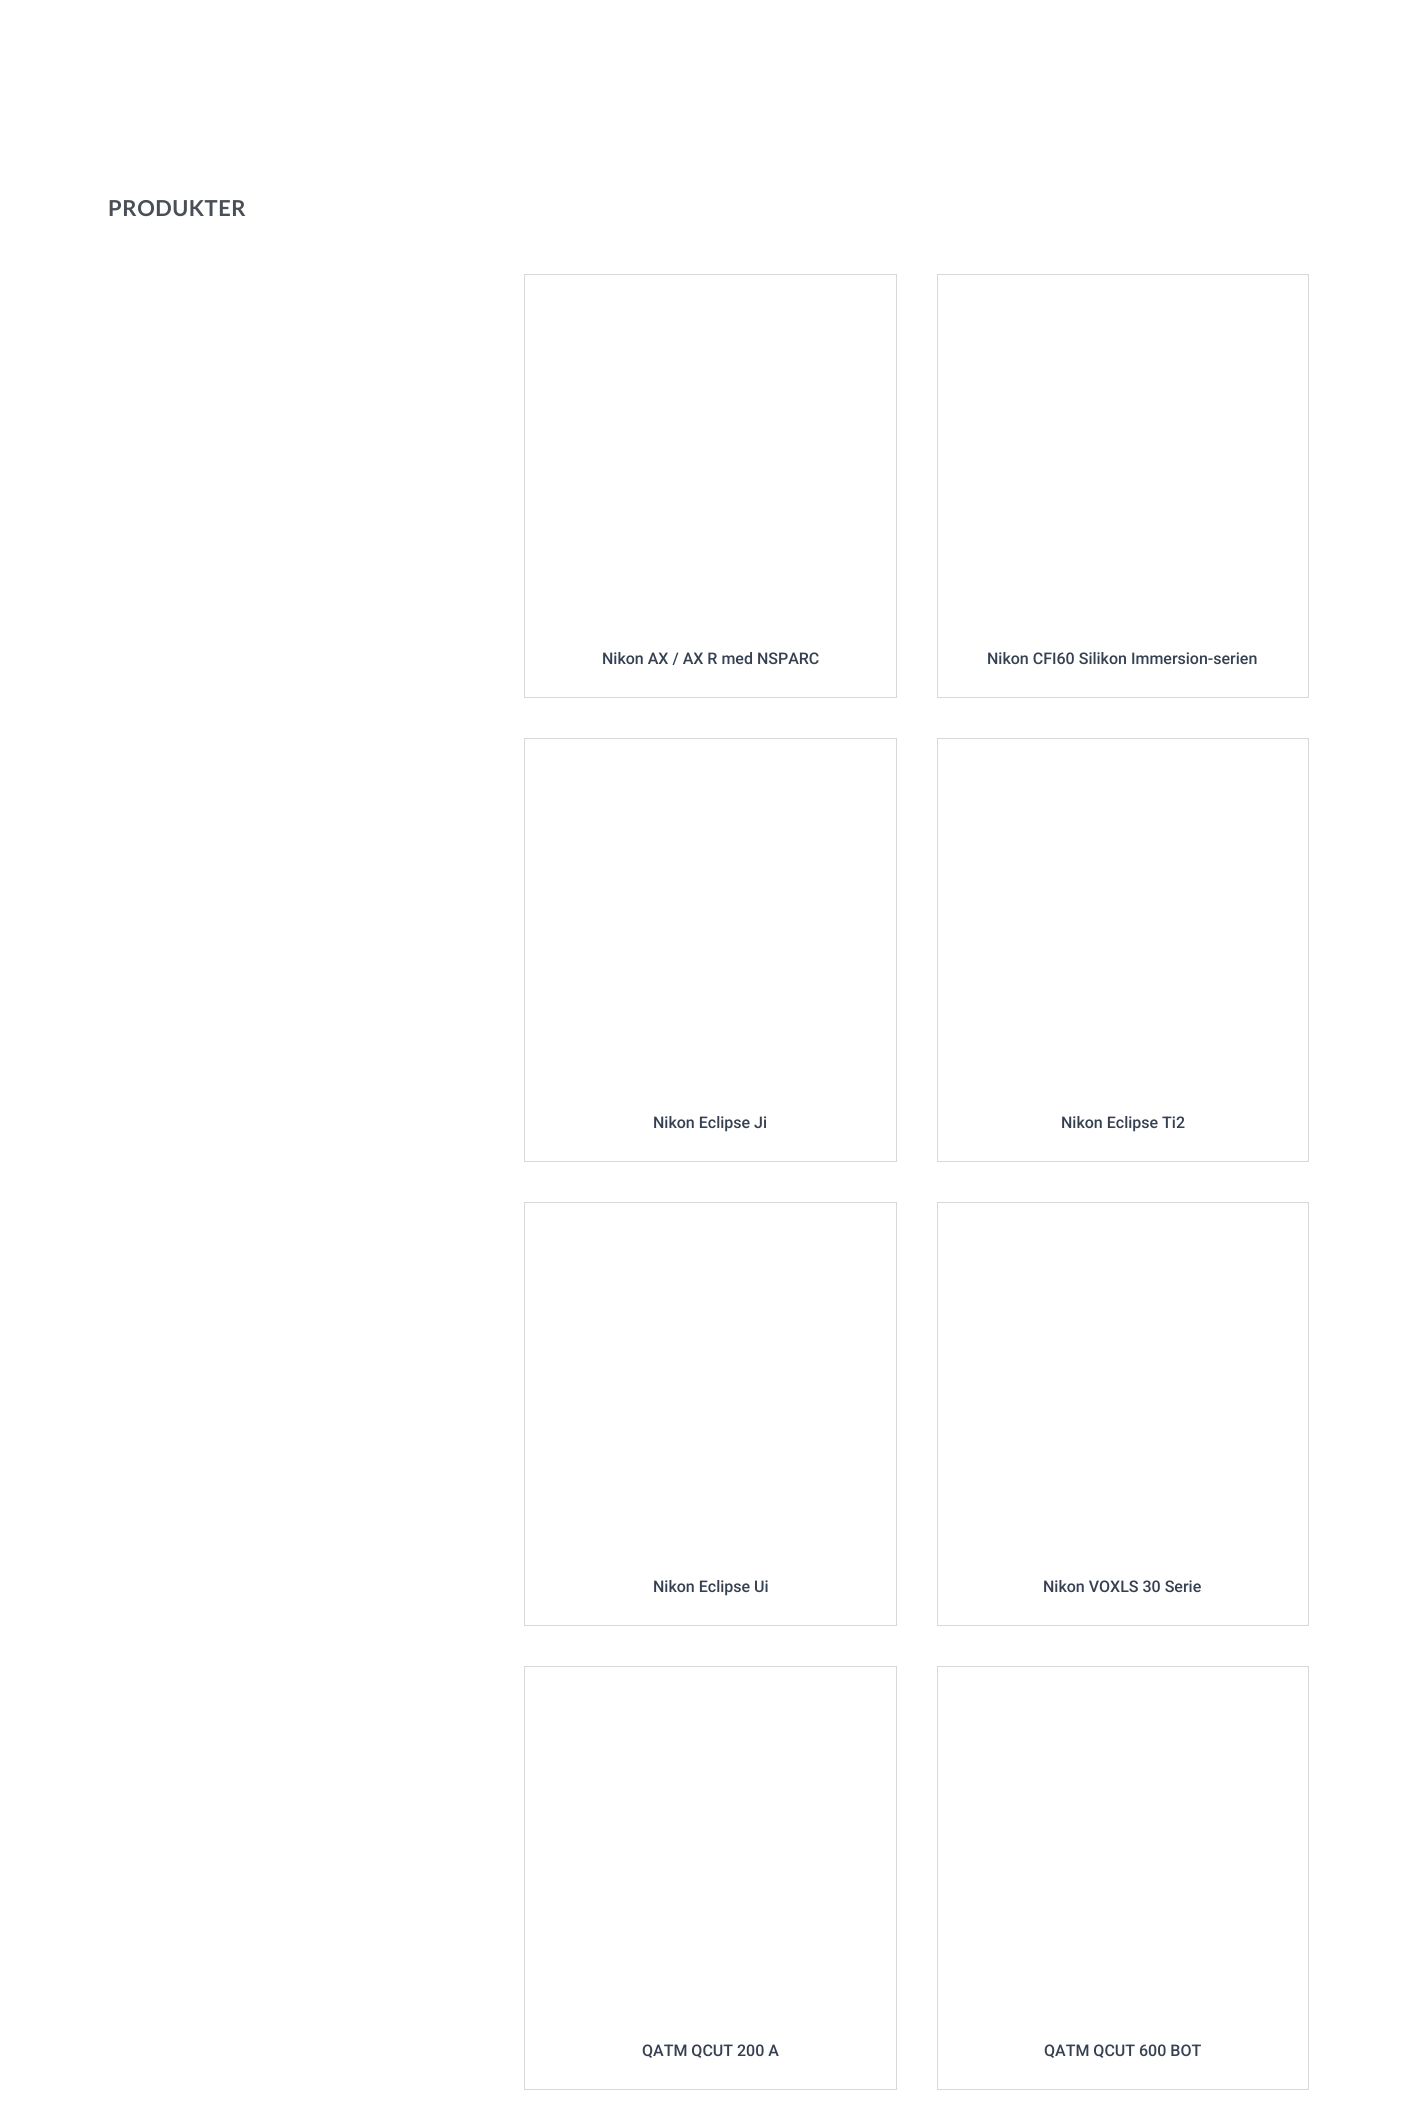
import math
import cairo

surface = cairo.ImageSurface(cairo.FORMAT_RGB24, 1417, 2109)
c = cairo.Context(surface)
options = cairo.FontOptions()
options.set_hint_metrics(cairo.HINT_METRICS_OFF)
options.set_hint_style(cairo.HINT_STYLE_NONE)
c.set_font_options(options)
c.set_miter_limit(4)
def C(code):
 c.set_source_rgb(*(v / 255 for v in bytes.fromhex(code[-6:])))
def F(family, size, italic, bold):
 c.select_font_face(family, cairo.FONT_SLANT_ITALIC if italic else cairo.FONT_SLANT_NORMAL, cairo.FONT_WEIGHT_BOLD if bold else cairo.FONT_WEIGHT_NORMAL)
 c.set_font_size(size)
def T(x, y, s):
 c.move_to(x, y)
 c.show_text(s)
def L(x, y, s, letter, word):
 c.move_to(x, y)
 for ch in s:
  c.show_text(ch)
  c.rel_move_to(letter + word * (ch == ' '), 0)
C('ffffff')
c.paint()
F('Lato',22,0,1)
C('4a4e57')
L(108,216,'PRODUKTER',.5,0)
c.rectangle(524.5,274.5,372,423)
C('d8d8d8')
c.set_line_width(1)
c.stroke()
F('Roboto Medium',16,0,0)
C('354052')
T(602,664,'Nikon AX / AX R med NSPARC')
c.rectangle(937.5,274.5,371,423)
C('d8d8d8')
c.stroke()
C('354052')
T(987,664,'Nikon CFI60 Silikon Immersion-serien')
c.rectangle(524.5,738.5,372,423)
C('d8d8d8')
c.stroke()
C('354052')
T(653,1128,'Nikon Eclipse Ji')
c.rectangle(937.5,738.5,371,423)
C('d8d8d8')
c.stroke()
C('354052')
T(1061,1128,'Nikon Eclipse Ti2')
c.rectangle(524.5,1202.5,372,423)
C('d8d8d8')
c.stroke()
C('354052')
T(653,1592,'Nikon Eclipse Ui')
c.rectangle(937.5,1202.5,371,423)
C('d8d8d8')
c.stroke()
C('354052')
T(1043,1592,'Nikon VOXLS 30 Serie')
c.rectangle(524.5,1666.5,372,423)
C('d8d8d8')
c.stroke()
C('354052')
T(642,2056,'QATM QCUT 200 A')
c.rectangle(937.5,1666.5,371,423)
C('d8d8d8')
c.stroke()
C('354052')
T(1044,2056,'QATM QCUT 600 BOT')
surface.write_to_png('o.png')
